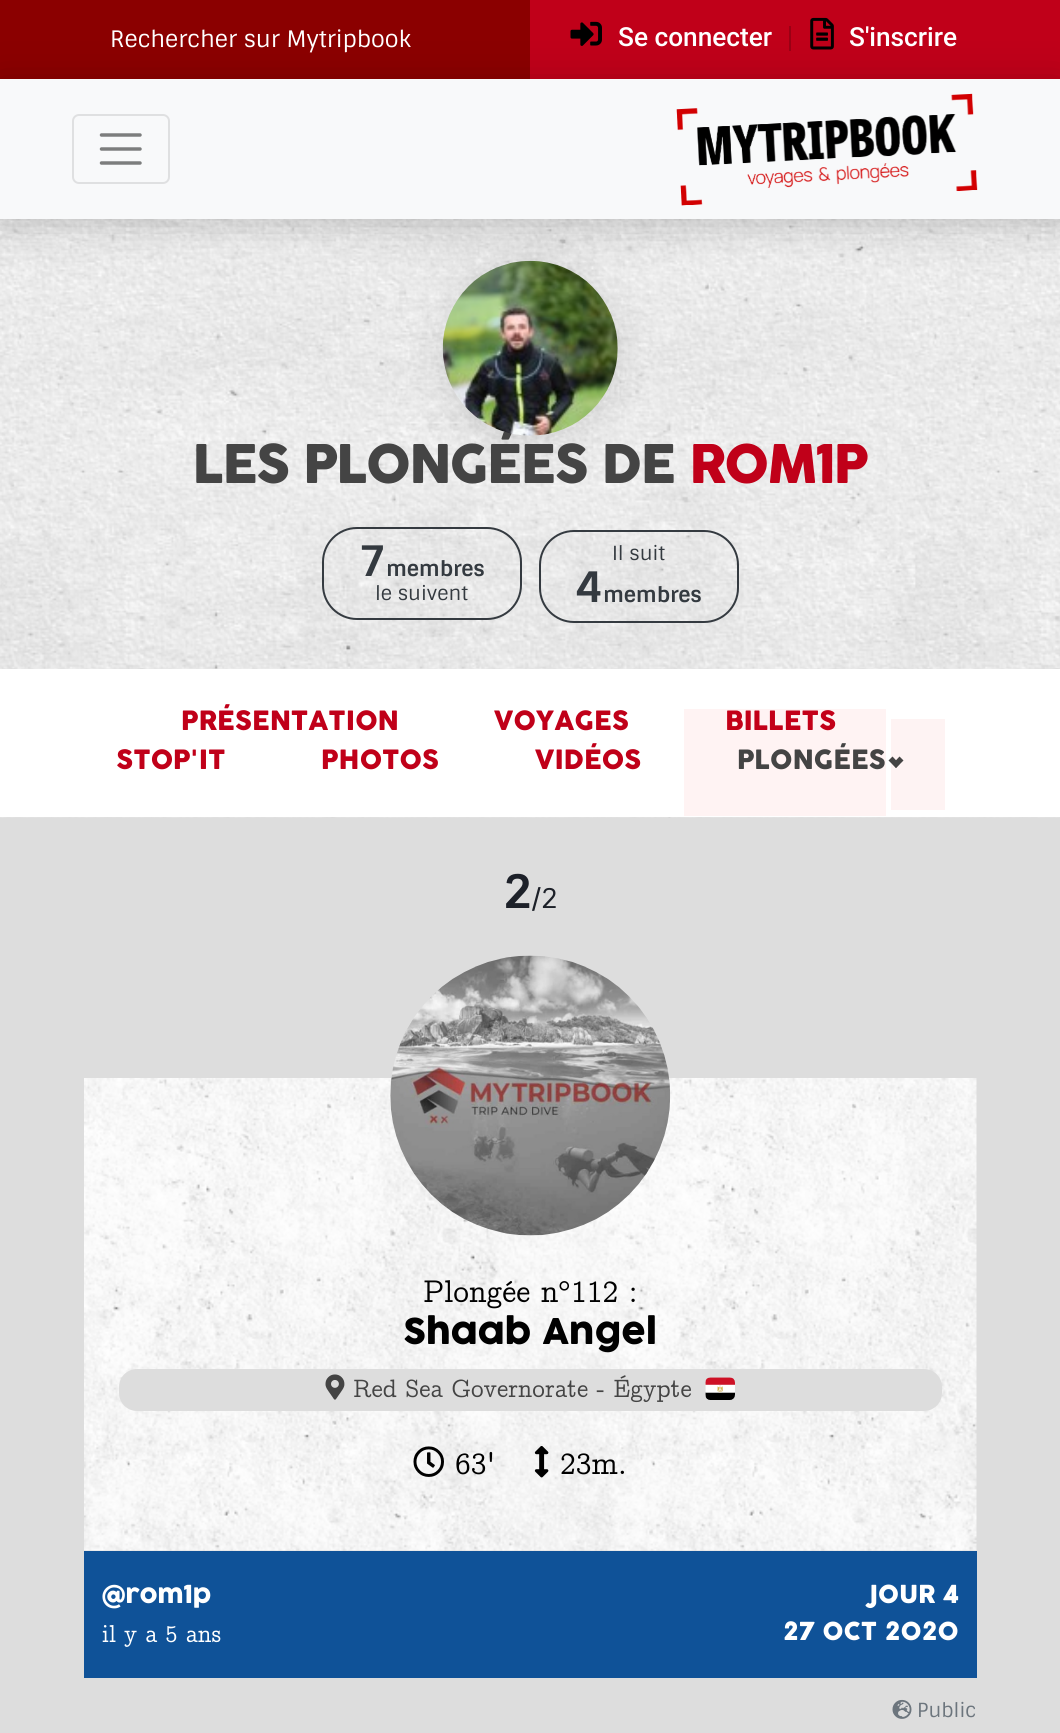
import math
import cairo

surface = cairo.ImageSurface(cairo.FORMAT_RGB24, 1060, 1733)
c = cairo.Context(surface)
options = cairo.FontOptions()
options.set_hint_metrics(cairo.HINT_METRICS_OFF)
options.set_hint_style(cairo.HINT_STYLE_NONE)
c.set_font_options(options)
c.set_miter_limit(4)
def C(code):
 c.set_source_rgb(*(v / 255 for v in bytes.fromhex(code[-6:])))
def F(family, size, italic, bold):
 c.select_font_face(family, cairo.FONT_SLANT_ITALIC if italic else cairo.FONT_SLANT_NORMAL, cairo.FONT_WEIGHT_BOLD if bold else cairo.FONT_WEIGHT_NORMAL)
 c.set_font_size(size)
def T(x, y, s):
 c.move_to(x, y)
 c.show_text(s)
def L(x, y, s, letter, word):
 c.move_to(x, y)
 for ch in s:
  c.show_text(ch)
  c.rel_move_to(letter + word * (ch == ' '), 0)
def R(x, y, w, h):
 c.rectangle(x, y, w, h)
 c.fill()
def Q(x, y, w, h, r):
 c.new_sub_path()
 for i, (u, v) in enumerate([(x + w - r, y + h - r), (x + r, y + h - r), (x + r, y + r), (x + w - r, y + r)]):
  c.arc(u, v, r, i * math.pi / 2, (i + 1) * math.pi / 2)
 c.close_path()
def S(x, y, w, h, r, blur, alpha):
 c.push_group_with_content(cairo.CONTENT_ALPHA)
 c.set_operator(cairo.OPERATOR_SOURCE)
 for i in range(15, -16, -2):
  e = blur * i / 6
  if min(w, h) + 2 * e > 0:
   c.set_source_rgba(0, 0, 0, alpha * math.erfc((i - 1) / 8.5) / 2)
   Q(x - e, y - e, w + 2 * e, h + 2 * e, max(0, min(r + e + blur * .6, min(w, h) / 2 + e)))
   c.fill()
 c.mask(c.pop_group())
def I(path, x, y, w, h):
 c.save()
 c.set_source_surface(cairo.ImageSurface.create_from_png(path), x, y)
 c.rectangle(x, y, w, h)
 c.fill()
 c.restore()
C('dddddd')
c.paint()
C('c00019')
R(530,0,530,79)
C('8b0000')
R(0,0,530,79)
I('2.png',570,21,32,25)
C('9a0014')
R(789,26,2,25)
I('3.png',810,17,24,33)
I('4.png',0,219,1060,599)
C('000000')
S(439,261,182,182,91,17.5,.1)
F('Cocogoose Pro',52.5,0,0)
C('444444')
L(193,483,'LES PLONGÉES DE',-1.75,0)
I('5.png',442,260,176,176)
C('000000')
S(0,84,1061,140,0,20,.2)
C('f8f9fa')
R(0,79,1060,140)
Q(73,115,96,68,6)
C('dfe0e1')
c.stroke()
c.new_path()
c.move_to(101.5,135)
c.line_to(140,135)
c.move_to(101.5,149)
c.line_to(140,149)
c.move_to(101.5,163)
c.line_to(140,163)
C('7c7d7d')
c.set_line_width(3.5)
c.set_line_cap(cairo.LINE_CAP_ROUND)
c.stroke()
I('1.png',676,93,302,113)
F('Sintony',22.75,0,0)
C('ffffff')
T(110,47,'Rechercher sur Mytripbook')
F('Roboto Medium',26.25,0,0)
T(618,46,'Se connecter')
T(849,46,'S\'inscrire')
F('Cocogoose Pro',52.5,0,0)
C('c00019')
L(689,483,'ROM1P',-1.75,0)
Q(323,528,198,91,34)
C('343a40')
c.set_line_width(2)
c.set_line_cap(cairo.LINE_CAP_BUTT)
c.stroke()
F('Sintony',42,0,1)
T(359,576,'7')
F('Sintony',21,0,1)
T(386,576,'membres')
F('Sintony',19.5,0,0)
T(375,600,'le suivent')
Q(540,531,198,91,34)
c.stroke()
T(612,560,'Il suit')
F('Sintony',42,0,1)
T(576,602,'4')
F('Sintony',21,0,1)
T(603,602,'membres')
C('ffffff')
R(0,669,1060,148)
F('Cocogoose Pro',26.25,0,0)
C('c00019')
T(181,730,'PRÉSENTATION')
T(494,730,'VOYAGES')
T(725,730,'BILLETS')
T(116,769,'STOP\'IT')
T(321,769,'PHOTOS')
T(535,769,'VIDÉOS')
c.set_source_rgba(0.941,0.031,0.031,0.05)
R(684,709,202,107)
C('fef3f3')
R(891,719,54,91)
C('444444')
T(737,769,'PLONGÉES')
c.new_path()
c.move_to(903.5,760.5)
c.line_to(896,768)
c.line_to(892.5,764)
c.line_to(899.5,756.5)
c.close_path()
c.fill()
c.new_path()
c.move_to(899.5,764)
c.line_to(896,768)
c.line_to(888.5,760.5)
c.line_to(892.5,756.5)
c.close_path()
c.fill()
F('Sintony',46,0,1)
C('1d2129')
T(503,908,'2')
F('Sintony',27,0,0)
T(532,908,'/2')
I('7.png',84,1078,893,473)
I('6.png',390,955,281,281)
F('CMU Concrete',31.5,0,0)
C('000000')
T(423,1302,'Plongée n')
F('Liberation Serif',31.5,0,0)
T(558,1302,'°')
F('CMU Concrete',31.5,0,0)
T(571,1302,'112 :')
F('Cocogoose Pro',35,0,0)
T(403,1344,'Shaab Angel')
C('dddddd')
Q(119,1369,823,42,18)
c.fill()
I('8.png',325,1374,20,26)
F('CMU Concrete',25.25,0,0)
C('444444')
T(353,1397,'Red Sea Governorate - Égypte')
I('9.png',705,1377,30,23)
I('10.png',413,1446,31,31)
F('CMU Concrete',31.5,0,0)
C('000000')
T(455,1474,'63\'')
I('11.png',534,1446,15,32)
T(560,1474,'23m.')
C('0f5298')
R(84,1551,893,127)
F('Cocogoose Pro',24.5,0,0)
C('ffffff')
T(102,1603,'@rom1p')
F('CMU Concrete',24.5,0,0)
T(102,1642,'il y a 5 ans')
F('Cocogoose Pro',24.5,0,0)
T(867,1603,'JOUR 4')
T(783,1640,'27 OCT 2020')
I('12.png',892,1699,20,20)
F('Sintony',19.5,0,0)
C('6c757d')
T(917,1717,'Public')
surface.write_to_png('o.png')
